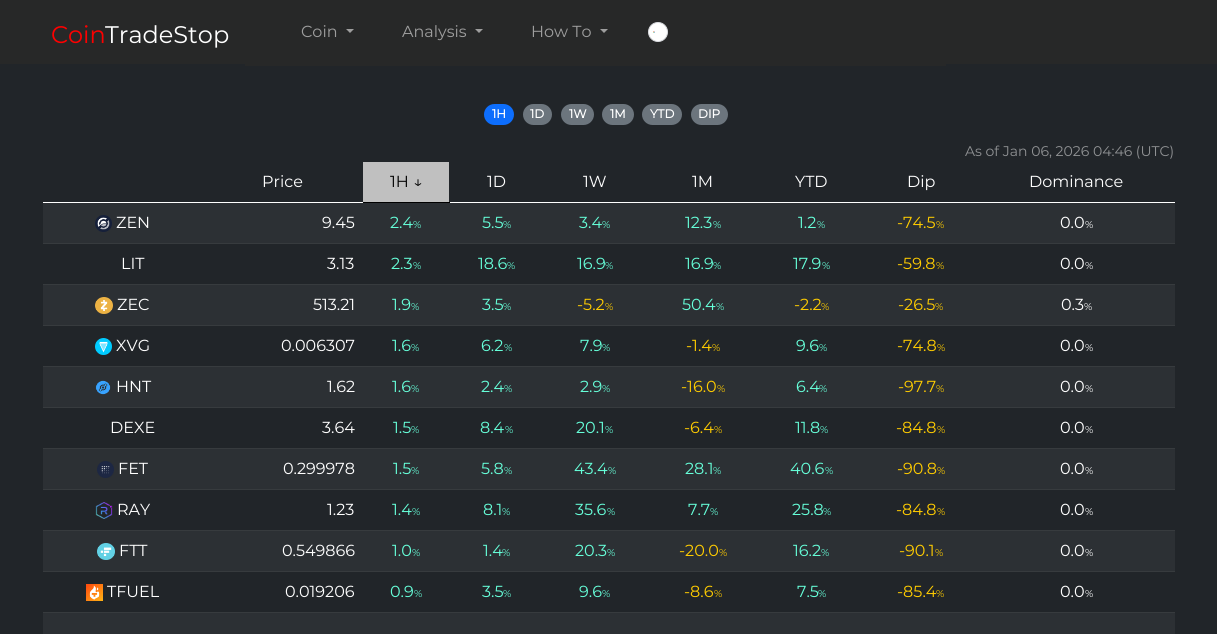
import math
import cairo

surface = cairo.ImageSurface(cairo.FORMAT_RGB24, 1217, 634)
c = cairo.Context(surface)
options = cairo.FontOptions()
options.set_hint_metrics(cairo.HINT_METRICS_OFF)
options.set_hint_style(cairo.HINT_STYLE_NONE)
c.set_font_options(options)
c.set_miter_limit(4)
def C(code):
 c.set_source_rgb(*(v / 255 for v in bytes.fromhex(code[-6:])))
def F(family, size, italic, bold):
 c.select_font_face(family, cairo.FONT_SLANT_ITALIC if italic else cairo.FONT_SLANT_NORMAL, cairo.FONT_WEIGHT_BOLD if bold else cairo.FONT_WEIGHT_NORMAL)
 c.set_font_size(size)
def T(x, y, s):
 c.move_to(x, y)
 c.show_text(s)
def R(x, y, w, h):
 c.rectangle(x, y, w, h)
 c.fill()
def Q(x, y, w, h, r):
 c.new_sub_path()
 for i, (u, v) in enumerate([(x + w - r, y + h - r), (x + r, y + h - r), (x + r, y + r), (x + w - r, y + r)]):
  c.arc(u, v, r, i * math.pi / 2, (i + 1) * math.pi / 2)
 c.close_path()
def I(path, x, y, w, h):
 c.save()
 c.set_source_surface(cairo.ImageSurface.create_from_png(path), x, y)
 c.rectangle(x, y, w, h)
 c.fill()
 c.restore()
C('212529')
c.paint()
c.set_source_rgba(0.157,0.157,0.157,0.9)
R(0,0,1217,64)
F('Montserrat Thin',24,0,0)
C('ff0000')
T(51,43,'Coin')
C('ffffff')
T(105,43,'TradeStop')
c.set_source_rgba(0.157,0.157,0.157,0.9)
R(245,64,701,2)
F('Montserrat Thin',16,0,0)
C('9e9e9e')
T(301,37,'Coin')
c.new_path()
c.move_to(346,29)
c.line_to(354,29)
c.line_to(350,33)
c.close_path()
c.fill()
T(402,37,'Analysis')
c.new_path()
c.move_to(475,29)
c.line_to(483,29)
c.line_to(479,33)
c.close_path()
c.fill()
T(531,37,'How To')
c.new_path()
c.move_to(600,29)
c.line_to(608,29)
c.line_to(604,33)
c.close_path()
c.fill()
C('ffffff')
c.arc(658,32,9.5,0,2 * math.pi)
c.fill_preserve()
C('dadce0')
c.set_line_width(1)
c.stroke()
I('1.png',653,31,2,2)
C('0d6efd')
Q(484,104,30,21,10.5)
c.fill()
F('Montserrat',12,0,1)
C('ffffff')
T(492,118,'1H')
C('6c757d')
Q(523,104,29,21,10.5)
c.fill()
C('ffffff')
T(530,118,'1D')
C('6c757d')
Q(561,104,33,21,10.5)
c.fill()
C('ffffff')
T(569,118,'1W')
C('6c757d')
Q(602,104,32,21,10.5)
c.fill()
C('ffffff')
T(610,118,'1M')
C('6c757d')
Q(642,104,40,21,10.5)
c.fill()
C('ffffff')
T(650,118,'YTD')
C('6c757d')
Q(691,104,37,21,10.5)
c.fill()
C('ffffff')
T(698,118,'DIP')
F('Montserrat Thin',14,0,0)
C('909294')
T(965,156,'As of Jan 06, 2026 04:46 (UTC)')
C('ffffff')
R(449,202,726,1)
C('000000')
R(362,202,88,1)
C('ffffff')
R(43,202,320,1)
F('Montserrat Thin',16,0,0)
T(262,187,'Price')
C('c0c0c0')
R(363,162,86,40)
C('000000')
T(390,187,'1H ↓')
C('ffffff')
T(487,187,'1D')
T(583,187,'1W')
T(692,187,'1M')
T(795,187,'YTD')
T(907,187,'Dip')
T(1029,187,'Dominance')
C('2c3034')
R(43,203,1132,40)
I('2.png',95,215,17,17)
C('ffffff')
T(116,228,'ZEN')
T(322,228,'9.45')
C('66ffd9')
T(390,228,'2.4')
F('Montserrat Thin',10,0,0)
T(413,228,'%')
F('Montserrat Thin',16,0,0)
T(482,228,'5.5')
F('Montserrat Thin',10,0,0)
T(503,228,'%')
F('Montserrat Thin',16,0,0)
T(579,228,'3.4')
F('Montserrat Thin',10,0,0)
T(602,228,'%')
F('Montserrat Thin',16,0,0)
T(685,228,'12.3')
F('Montserrat Thin',10,0,0)
T(713,228,'%')
F('Montserrat Thin',16,0,0)
T(798,228,'1.2')
F('Montserrat Thin',10,0,0)
T(817,228,'%')
F('Montserrat Thin',16,0,0)
C('ffcc00')
T(897,228,'-74.5')
F('Montserrat Thin',10,0,0)
T(936,228,'%')
C('373b3e')
R(43,243,1132,1)
F('Montserrat Thin',16,0,0)
C('ffffff')
T(1060,228,'0.0')
F('Montserrat Thin',10,0,0)
T(1085,228,'%')
F('Montserrat Thin',16,0,0)
T(121,269,'LIT')
T(327,269,'3.13')
C('66ffd9')
T(391,269,'2.3')
F('Montserrat Thin',10,0,0)
T(413,269,'%')
F('Montserrat Thin',16,0,0)
T(478,269,'18.6')
F('Montserrat Thin',10,0,0)
T(507,269,'%')
F('Montserrat Thin',16,0,0)
T(577,269,'16.9')
F('Montserrat Thin',10,0,0)
T(605,269,'%')
F('Montserrat Thin',16,0,0)
T(685,269,'16.9')
F('Montserrat Thin',10,0,0)
T(713,269,'%')
F('Montserrat Thin',16,0,0)
T(793,269,'17.9')
F('Montserrat Thin',10,0,0)
T(822,269,'%')
F('Montserrat Thin',16,0,0)
C('ffcc00')
T(897,269,'-59.8')
F('Montserrat Thin',10,0,0)
T(936,269,'%')
C('373b3e')
R(43,284,1132,1)
F('Montserrat Thin',16,0,0)
C('ffffff')
T(1060,269,'0.0')
F('Montserrat Thin',10,0,0)
T(1085,269,'%')
C('2c3034')
R(43,285,1132,40)
I('3.png',95,297,18,17)
F('Montserrat Thin',16,0,0)
C('ffffff')
T(117,310,'ZEC')
T(313,310,'513.21')
C('66ffd9')
T(392,310,'1.9')
F('Montserrat Thin',10,0,0)
T(411,310,'%')
F('Montserrat Thin',16,0,0)
T(482,310,'3.5')
F('Montserrat Thin',10,0,0)
T(503,310,'%')
F('Montserrat Thin',16,0,0)
C('ffcc00')
T(577,310,'-5.2')
F('Montserrat Thin',10,0,0)
T(605,310,'%')
F('Montserrat Thin',16,0,0)
C('66ffd9')
T(682,310,'50.4')
F('Montserrat Thin',10,0,0)
T(716,310,'%')
F('Montserrat Thin',16,0,0)
C('ffcc00')
T(794,310,'-2.2')
F('Montserrat Thin',10,0,0)
T(821,310,'%')
F('Montserrat Thin',16,0,0)
T(898,310,'-26.5')
F('Montserrat Thin',10,0,0)
T(935,310,'%')
C('373b3e')
R(43,325,1132,1)
F('Montserrat Thin',16,0,0)
C('ffffff')
T(1061,310,'0.3')
F('Montserrat Thin',10,0,0)
T(1084,310,'%')
I('4.png',95,338,17,17)
F('Montserrat Thin',16,0,0)
T(116,351,'XVG')
T(281,351,'0.006307')
C('66ffd9')
T(392,351,'1.6')
F('Montserrat Thin',10,0,0)
T(411,351,'%')
F('Montserrat Thin',16,0,0)
T(481,351,'6.2')
F('Montserrat Thin',10,0,0)
T(504,351,'%')
F('Montserrat Thin',16,0,0)
T(580,351,'7.9')
F('Montserrat Thin',10,0,0)
T(602,351,'%')
F('Montserrat Thin',16,0,0)
C('ffcc00')
T(686,351,'-1.4')
F('Montserrat Thin',10,0,0)
T(712,351,'%')
F('Montserrat Thin',16,0,0)
C('66ffd9')
T(796,351,'9.6')
F('Montserrat Thin',10,0,0)
T(819,351,'%')
F('Montserrat Thin',16,0,0)
C('ffcc00')
T(897,351,'-74.8')
F('Montserrat Thin',10,0,0)
T(937,351,'%')
C('373b3e')
R(43,366,1132,1)
F('Montserrat Thin',16,0,0)
C('ffffff')
T(1060,351,'0.0')
F('Montserrat Thin',10,0,0)
T(1085,351,'%')
C('2c3034')
R(43,367,1132,40)
I('5.png',95,380,16,15)
F('Montserrat Thin',16,0,0)
C('ffffff')
T(116,392,'HNT')
T(327,392,'1.62')
C('66ffd9')
T(392,392,'1.6')
F('Montserrat Thin',10,0,0)
T(411,392,'%')
F('Montserrat Thin',16,0,0)
T(481,392,'2.4')
F('Montserrat Thin',10,0,0)
T(504,392,'%')
F('Montserrat Thin',16,0,0)
T(580,392,'2.9')
F('Montserrat Thin',10,0,0)
T(602,392,'%')
F('Montserrat Thin',16,0,0)
C('ffcc00')
T(681,392,'-16.0')
F('Montserrat Thin',10,0,0)
T(717,392,'%')
F('Montserrat Thin',16,0,0)
C('66ffd9')
T(796,392,'6.4')
F('Montserrat Thin',10,0,0)
T(819,392,'%')
F('Montserrat Thin',16,0,0)
C('ffcc00')
T(898,392,'-97.7')
F('Montserrat Thin',10,0,0)
T(936,392,'%')
C('373b3e')
R(43,407,1132,1)
F('Montserrat Thin',16,0,0)
C('ffffff')
T(1060,392,'0.0')
F('Montserrat Thin',10,0,0)
T(1085,392,'%')
F('Montserrat Thin',16,0,0)
T(110,433,'DEXE')
T(322,433,'3.64')
C('66ffd9')
T(393,433,'1.5')
F('Montserrat Thin',10,0,0)
T(411,433,'%')
F('Montserrat Thin',16,0,0)
T(480,433,'8.4')
F('Montserrat Thin',10,0,0)
T(505,433,'%')
F('Montserrat Thin',16,0,0)
T(576,433,'20.1')
F('Montserrat Thin',10,0,0)
T(605,433,'%')
F('Montserrat Thin',16,0,0)
C('ffcc00')
T(684,433,'-6.4')
F('Montserrat Thin',10,0,0)
T(714,433,'%')
F('Montserrat Thin',16,0,0)
C('66ffd9')
T(795,433,'11.8')
F('Montserrat Thin',10,0,0)
T(820,433,'%')
F('Montserrat Thin',16,0,0)
C('ffcc00')
T(896,433,'-84.8')
F('Montserrat Thin',10,0,0)
T(937,433,'%')
C('373b3e')
R(43,448,1132,1)
F('Montserrat Thin',16,0,0)
C('ffffff')
T(1060,433,'0.0')
F('Montserrat Thin',10,0,0)
T(1085,433,'%')
C('2c3034')
R(43,449,1132,40)
I('6.png',97,461,17,17)
F('Montserrat Thin',16,0,0)
C('ffffff')
T(118,474,'FET')
T(283,474,'0.299978')
C('66ffd9')
T(393,474,'1.5')
F('Montserrat Thin',10,0,0)
T(411,474,'%')
F('Montserrat Thin',16,0,0)
T(481,474,'5.8')
F('Montserrat Thin',10,0,0)
T(504,474,'%')
F('Montserrat Thin',16,0,0)
T(574,474,'43.4')
F('Montserrat Thin',10,0,0)
T(608,474,'%')
F('Montserrat Thin',16,0,0)
T(685,474,'28.1')
F('Montserrat Thin',10,0,0)
T(713,474,'%')
F('Montserrat Thin',16,0,0)
T(790,474,'40.6')
F('Montserrat Thin',10,0,0)
T(825,474,'%')
F('Montserrat Thin',16,0,0)
C('ffcc00')
T(897,474,'-90.8')
F('Montserrat Thin',10,0,0)
T(937,474,'%')
C('373b3e')
R(43,489,1132,1)
F('Montserrat Thin',16,0,0)
C('ffffff')
T(1060,474,'0.0')
F('Montserrat Thin',10,0,0)
T(1085,474,'%')
I('7.png',95,502,18,17)
F('Montserrat Thin',16,0,0)
T(117,515,'RAY')
T(327,515,'1.23')
C('66ffd9')
T(392,515,'1.4')
F('Montserrat Thin',10,0,0)
T(412,515,'%')
F('Montserrat Thin',16,0,0)
T(483,515,'8.1')
F('Montserrat Thin',10,0,0)
T(502,515,'%')
F('Montserrat Thin',16,0,0)
T(575,515,'35.6')
F('Montserrat Thin',10,0,0)
T(607,515,'%')
F('Montserrat Thin',16,0,0)
T(688,515,'7.7')
F('Montserrat Thin',10,0,0)
T(710,515,'%')
F('Montserrat Thin',16,0,0)
T(792,515,'25.8')
F('Montserrat Thin',10,0,0)
T(823,515,'%')
F('Montserrat Thin',16,0,0)
C('ffcc00')
T(896,515,'-84.8')
F('Montserrat Thin',10,0,0)
T(937,515,'%')
C('373b3e')
R(43,530,1132,1)
F('Montserrat Thin',16,0,0)
C('ffffff')
T(1060,515,'0.0')
F('Montserrat Thin',10,0,0)
T(1085,515,'%')
C('2c3034')
R(43,531,1132,40)
I('8.png',97,543,18,17)
F('Montserrat Thin',16,0,0)
C('ffffff')
T(119,556,'FTT')
T(282,556,'0.549866')
C('66ffd9')
T(392,556,'1.0')
F('Montserrat Thin',10,0,0)
T(412,556,'%')
F('Montserrat Thin',16,0,0)
T(483,556,'1.4')
F('Montserrat Thin',10,0,0)
T(502,556,'%')
F('Montserrat Thin',16,0,0)
T(575,556,'20.3')
F('Montserrat Thin',10,0,0)
T(607,556,'%')
F('Montserrat Thin',16,0,0)
C('ffcc00')
T(679,556,'-20.0')
F('Montserrat Thin',10,0,0)
T(719,556,'%')
F('Montserrat Thin',16,0,0)
C('66ffd9')
T(793,556,'16.2')
F('Montserrat Thin',10,0,0)
T(821,556,'%')
F('Montserrat Thin',16,0,0)
C('ffcc00')
T(899,556,'-90.1')
F('Montserrat Thin',10,0,0)
T(935,556,'%')
C('373b3e')
R(43,571,1132,1)
F('Montserrat Thin',16,0,0)
C('ffffff')
T(1060,556,'0.0')
F('Montserrat Thin',10,0,0)
T(1085,556,'%')
I('9.png',86,584,17,17)
F('Montserrat Thin',16,0,0)
T(107,597,'TFUEL')
T(285,597,'0.019206')
C('66ffd9')
T(390,597,'0.9')
F('Montserrat Thin',10,0,0)
T(414,597,'%')
F('Montserrat Thin',16,0,0)
T(482,597,'3.5')
F('Montserrat Thin',10,0,0)
T(503,597,'%')
F('Montserrat Thin',16,0,0)
T(579,597,'9.6')
F('Montserrat Thin',10,0,0)
T(602,597,'%')
F('Montserrat Thin',16,0,0)
C('ffcc00')
T(684,597,'-8.6')
F('Montserrat Thin',10,0,0)
T(714,597,'%')
F('Montserrat Thin',16,0,0)
C('66ffd9')
T(797,597,'7.5')
F('Montserrat Thin',10,0,0)
T(818,597,'%')
F('Montserrat Thin',16,0,0)
C('ffcc00')
T(897,597,'-85.4')
F('Montserrat Thin',10,0,0)
T(936,597,'%')
C('373b3e')
R(43,612,1132,1)
F('Montserrat Thin',16,0,0)
C('ffffff')
T(1060,597,'0.0')
F('Montserrat Thin',10,0,0)
T(1085,597,'%')
C('2c3034')
R(43,613,1132,21)
surface.write_to_png('o.png')
